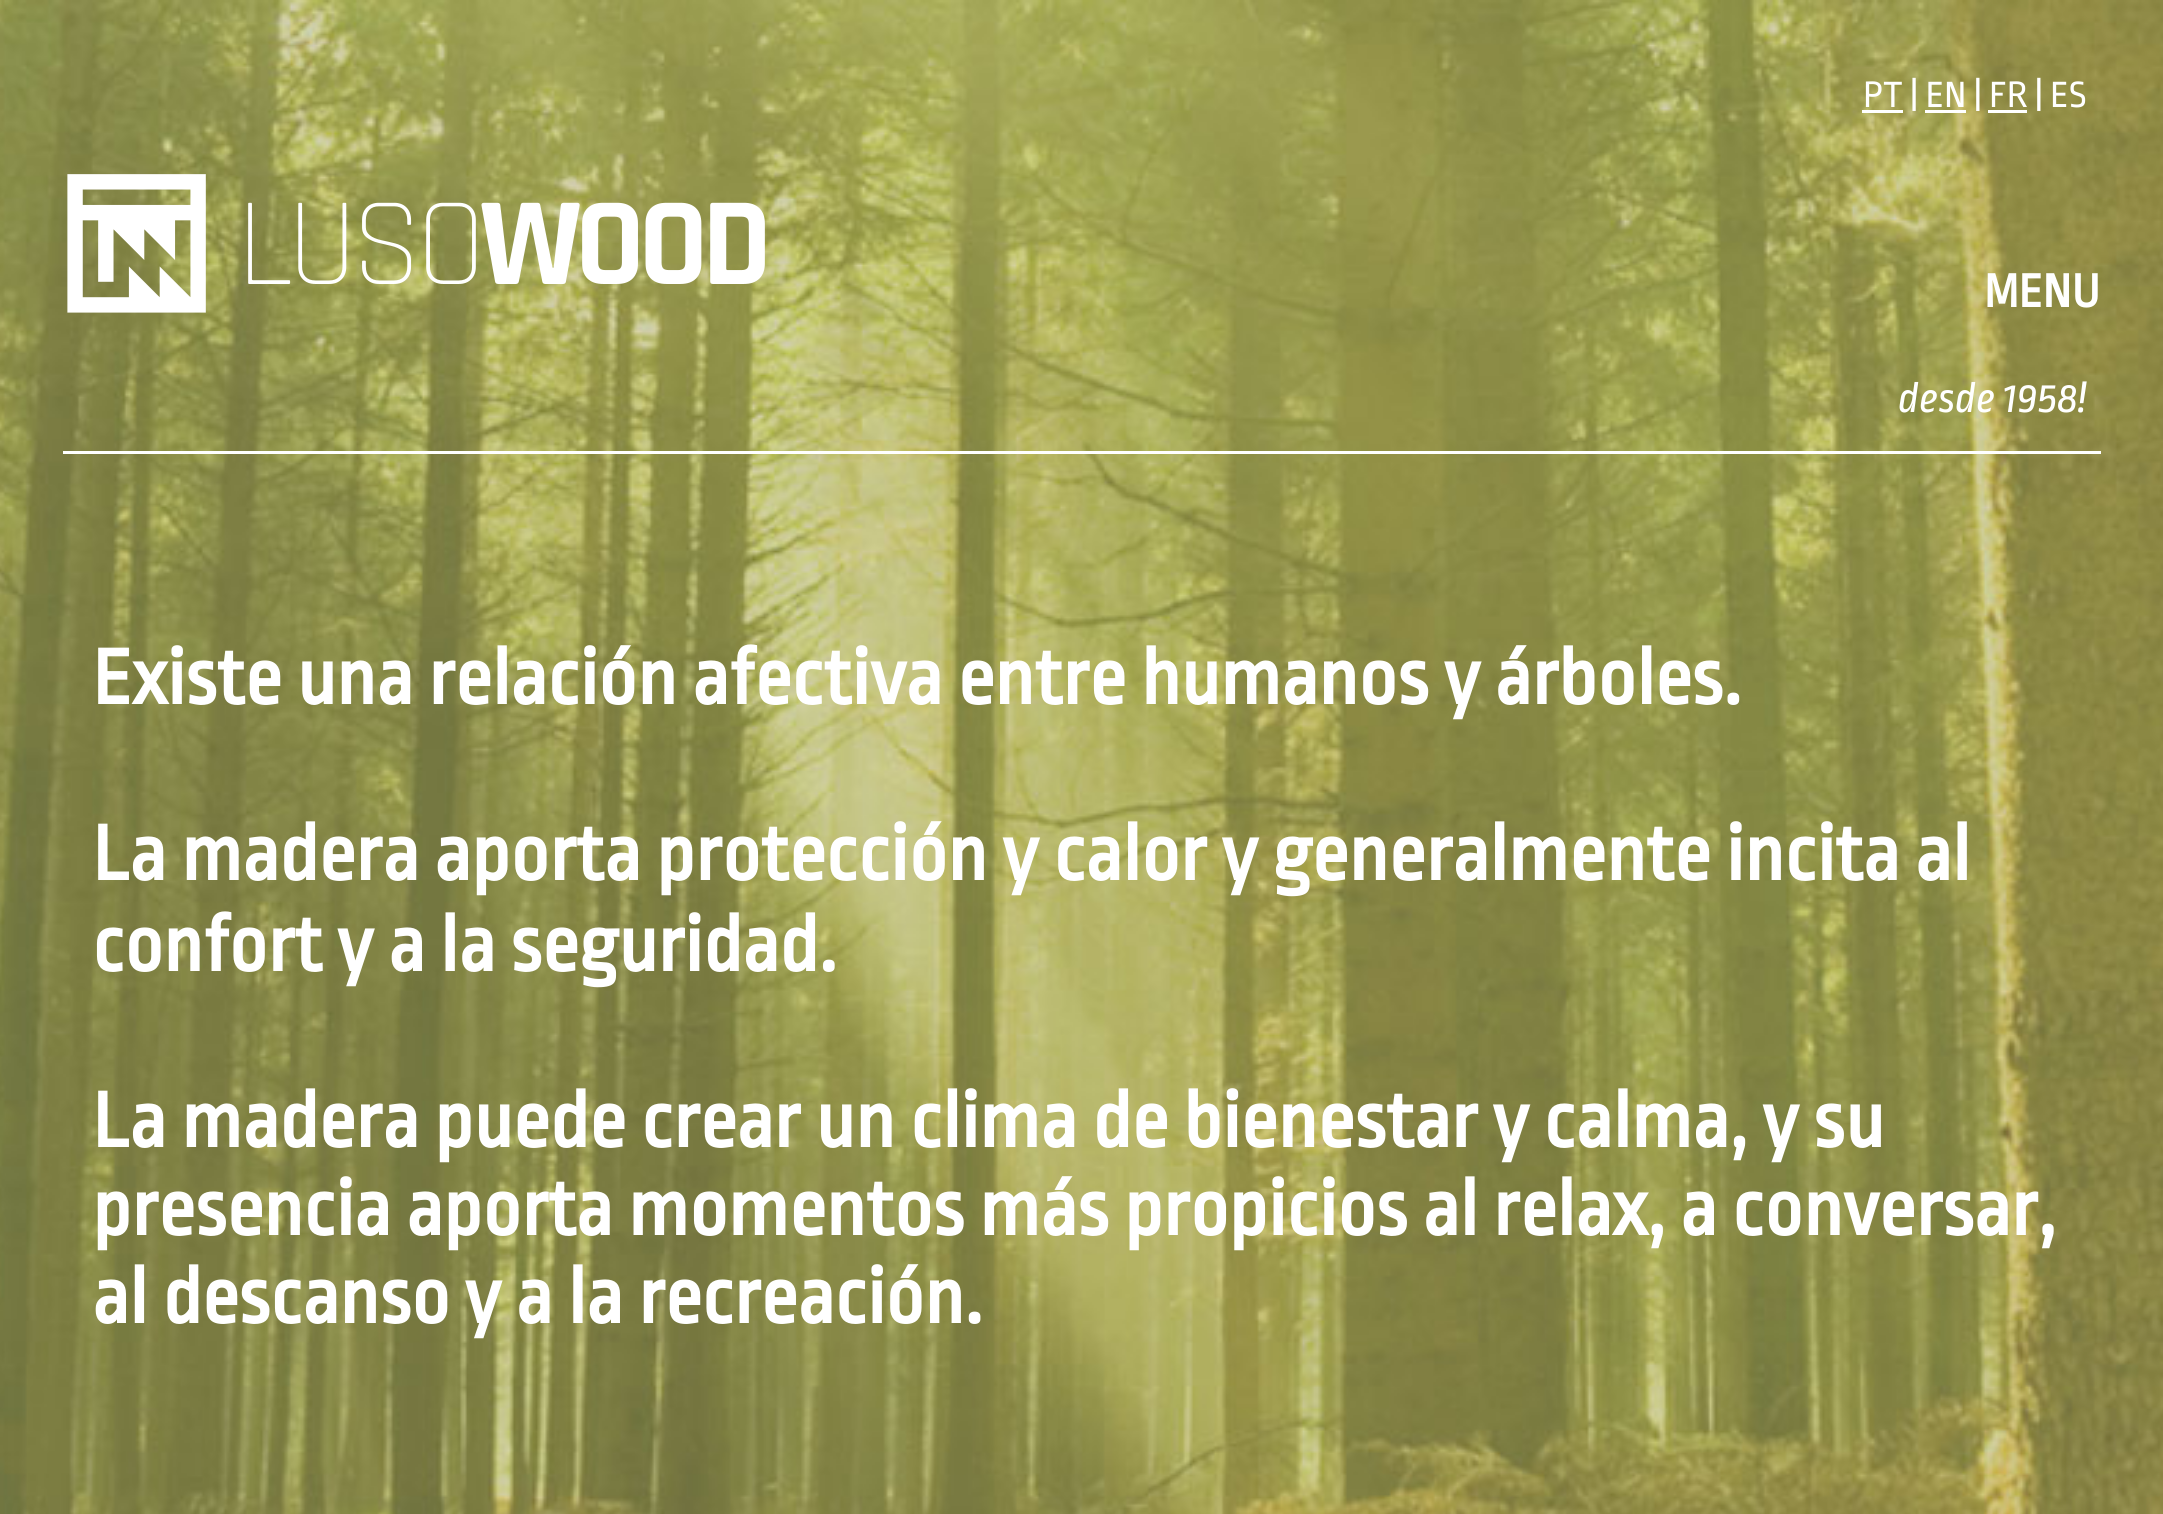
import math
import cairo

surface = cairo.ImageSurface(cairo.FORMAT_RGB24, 2163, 1514)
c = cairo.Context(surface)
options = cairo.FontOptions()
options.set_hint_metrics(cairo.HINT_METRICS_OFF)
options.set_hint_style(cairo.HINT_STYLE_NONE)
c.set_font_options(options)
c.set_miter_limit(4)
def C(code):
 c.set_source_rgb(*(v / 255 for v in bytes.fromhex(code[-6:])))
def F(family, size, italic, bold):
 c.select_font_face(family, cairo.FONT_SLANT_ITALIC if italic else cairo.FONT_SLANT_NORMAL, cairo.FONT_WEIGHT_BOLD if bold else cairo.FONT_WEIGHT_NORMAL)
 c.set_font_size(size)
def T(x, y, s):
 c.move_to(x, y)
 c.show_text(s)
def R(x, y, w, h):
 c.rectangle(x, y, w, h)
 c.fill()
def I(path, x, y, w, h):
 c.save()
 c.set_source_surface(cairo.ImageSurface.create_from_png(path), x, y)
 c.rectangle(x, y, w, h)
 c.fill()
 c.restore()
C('ffffff')
c.paint()
I('1.png',0,0,2163,1514)
C('ffffff')
R(1862,110,41,3)
F('Ropa Sans',38.5,0,0)
T(1863,107,'PT | EN | FR | ES')
R(1925,110,41,3)
R(1988,110,39,3)
I('2.png',67,174,698,139)
F('Ropa Sans',49.5,0,1)
T(1984,307,'MENU')
R(63,451,2038,3)
F('Ropa Sans',44,1,0)
T(1898,412,'desde 1958!')
F('Ropa Sans',82.5,0,1)
T(92,704,'Existe una relación afectiva entre humanos y árboles.')
T(92,880,'La madera aporta protección y calor y generalmente incita al')
T(92,971,'confort y a la seguridad.')
T(92,1147,'La madera puede crear un clima de bienestar y calma, y su')
T(92,1235,'presencia aporta momentos más propicios al relax, a conversar,')
T(92,1323,'al descanso y a la recreación.')
surface.write_to_png('o.png')
